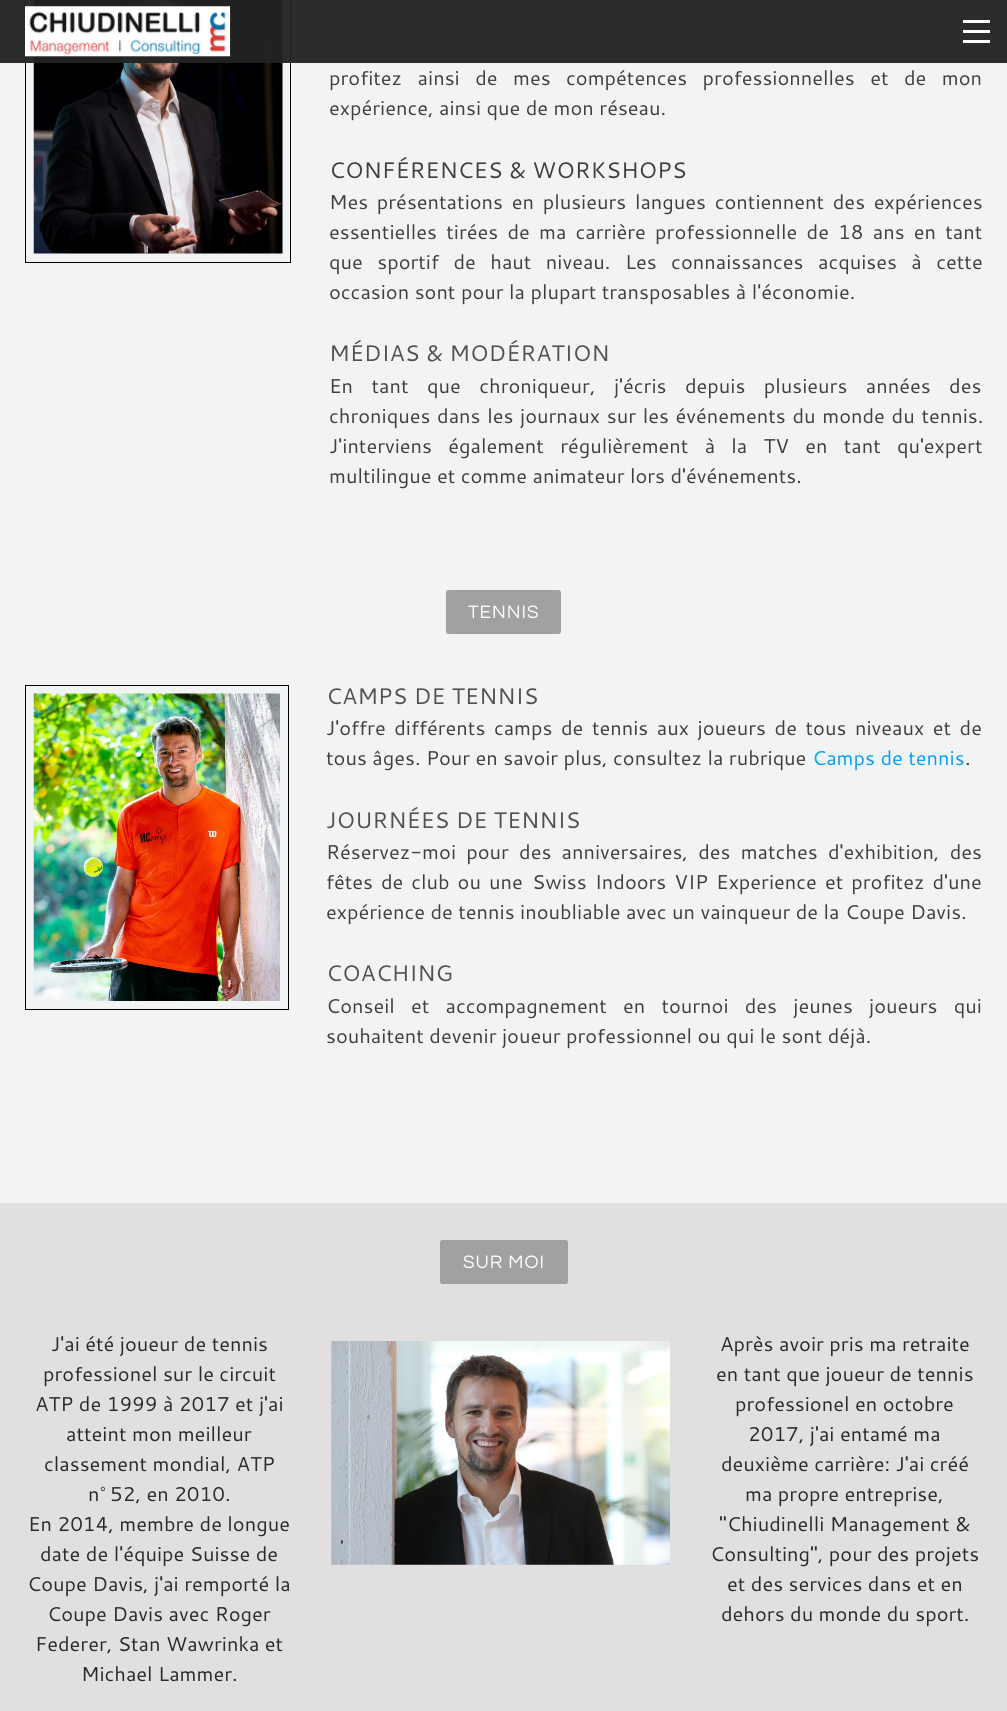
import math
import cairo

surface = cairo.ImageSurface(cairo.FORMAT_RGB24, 1007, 1711)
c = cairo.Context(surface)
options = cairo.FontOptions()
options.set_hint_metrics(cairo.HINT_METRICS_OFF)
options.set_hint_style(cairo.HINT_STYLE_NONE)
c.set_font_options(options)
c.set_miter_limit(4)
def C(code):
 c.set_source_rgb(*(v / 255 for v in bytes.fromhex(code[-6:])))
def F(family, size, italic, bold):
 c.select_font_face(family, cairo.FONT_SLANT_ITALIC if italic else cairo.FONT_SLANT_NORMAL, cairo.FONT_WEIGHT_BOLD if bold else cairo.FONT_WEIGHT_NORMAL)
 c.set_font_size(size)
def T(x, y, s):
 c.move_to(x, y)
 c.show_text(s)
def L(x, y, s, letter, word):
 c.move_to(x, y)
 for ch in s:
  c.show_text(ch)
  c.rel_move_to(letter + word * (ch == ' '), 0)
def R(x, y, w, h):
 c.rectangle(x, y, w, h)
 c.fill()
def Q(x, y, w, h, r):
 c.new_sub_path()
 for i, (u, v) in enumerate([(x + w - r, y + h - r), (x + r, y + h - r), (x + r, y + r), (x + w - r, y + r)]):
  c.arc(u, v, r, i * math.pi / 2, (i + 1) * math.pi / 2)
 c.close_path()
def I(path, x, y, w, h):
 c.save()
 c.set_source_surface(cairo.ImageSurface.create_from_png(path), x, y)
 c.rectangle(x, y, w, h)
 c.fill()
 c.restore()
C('f2f3f4')
c.paint()
c.rectangle(25.5,-.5,265,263)
C('000000')
c.set_line_width(1)
c.stroke()
I('2.png',33,0,250,254)
c.set_source_rgba(0.137,0.137,0.137,0.95)
R(0,0,1007,63)
I('1.png',25,6,206,51)
C('ffffff')
R(963,30,27,3)
R(963,20,27,3)
R(963,40,27,3)
F('Cantarell',20,0,0)
C('3f3f3f')
L(329,85,'profitez ainsi de mes compétences professionnelles et de mon',0,10)
T(329,115,'expérience, ainsi que de mon réseau.')
F('Cantarell',22.5,0,0)
T(329,178,'CONFÉRENCES & WORKSHOPS')
F('Cantarell',20,0,0)
L(329,209,'Mes présentations en plusieurs langues contiennent des expériences',0,3.25)
L(329,239,'essentielles tirées de ma carrière professionnelle de 18 ans en tant',0,3.75)
L(329,269,'que sportif de haut niveau. Les connaissances acquises à cette',0,9)
T(329,299,'occasion sont pour la plupart transposables à l\'économie.')
F('Cantarell',22.5,0,0)
C('515151')
T(329,361,'MÉDIAS & MODÉRATION')
F('Cantarell',20,0,0)
C('3f3f3f')
L(329,393,'En tant que chroniqueur, j\'écris depuis plusieurs années des',0,13)
L(329,423,'chroniques dans les journaux sur les événements du monde du tennis.',0,1.25)
L(329,453,'J\'interviens également régulièrement à la TV en tant qu\'expert',0,10.75)
T(329,483,'multilingue et comme animateur lors d\'événements.')
C('a1a1a1')
Q(447.5,591.5,112,41,1)
c.fill_preserve()
c.set_line_width(3)
c.stroke()
F('Questrial',18.75,0,0)
C('ffffff')
L(468,618,'TENNIS',1,0)
c.rectangle(25.5,685.5,263,324)
C('000000')
c.set_line_width(1)
c.stroke()
I('3.png',33,693,247,308)
F('Cantarell',22.5,0,0)
C('515151')
T(326,704,'CAMPS DE TENNIS')
F('Cantarell',20,0,0)
C('3f3f3f')
L(326,735,'J\'offre différents camps de tennis aux joueurs de tous niveaux et de',0,3.1)
T(326,765,'tous âges. Pour en savoir plus, consultez la rubrique')
C('079ef4')
T(812,765,'Camps de tennis')
C('3f3f3f')
T(965,765,'.')
F('Cantarell',22.5,0,0)
C('515151')
T(326,828,'JOURNÉES DE TENNIS')
F('Cantarell',20,0,0)
C('3f3f3f')
L(326,859,'Réservez-moi pour des anniversaires, des matches d\'exhibition, des',0,4.75)
L(326,889,'fêtes de club ou une',0,2.5)
L(532,889,'Swiss Indoors VIP Experience',0,2.5)
L(825,889,'et profitez d\'une',0,2.5)
T(326,919,'expérience de tennis inoubliable avec un vainqueur de la Coupe Davis.')
F('Cantarell',22.5,0,0)
C('515151')
T(326,981,'COACHING')
F('Cantarell',20,0,0)
C('3f3f3f')
L(326,1013,'Conseil et accompagnement en tournoi des jeunes joueurs qui',0,10.75)
T(326,1043,'souhaitent devenir joueur professionnel ou qui le sont déjà.')
C('e1dfdf')
R(0,1203,1007,508)
C('a1a1a1')
Q(441.5,1241.5,125,41,1)
c.fill_preserve()
c.set_line_width(3)
c.stroke()
F('Questrial',18.75,0,0)
C('ffffff')
L(463,1268,'SUR MOI',1,0)
F('Cantarell',20,0,0)
C('2a2a2a')
T(51,1351,'J\'ai été joueur de tennis')
T(43,1381,'professionel sur le circuit')
T(35,1411,'ATP de 1999 à 2017 et j\'ai')
T(66,1441,'atteint mon meilleur')
T(44,1471,'classement mondial, ATP')
T(88,1501,'n')
C('3f3f3f')
T(100,1501,'°')
C('2a2a2a')
T(110,1501,'52, en 2010.')
T(28,1531,'En 2014, membre de longue')
T(40,1561,'date de l\'équipe Suisse de')
T(27,1591,'Coupe Davis, j\'ai remporté la')
T(47,1621,'Coupe Davis avec Roger')
T(35,1651,'Federer, Stan Wawrinka et')
T(81,1681,'Michael Lammer.')
I('4.png',331,1341,339,224)
T(720,1351,'Après avoir pris ma retraite')
T(716,1381,'en tant que joueur de tennis')
T(735,1411,'professionel en octobre')
T(748,1441,'2017, j\'ai entamé ma')
T(721,1471,'deuxième carrière: J\'ai créé')
T(745,1501,'ma propre entreprise,')
T(719,1531,'"Chiudinelli Management &')
T(710,1561,'Consulting", pour des projets')
T(727,1591,'et des services dans et en')
T(721,1621,'dehors du monde du sport.')
surface.write_to_png('o.png')
